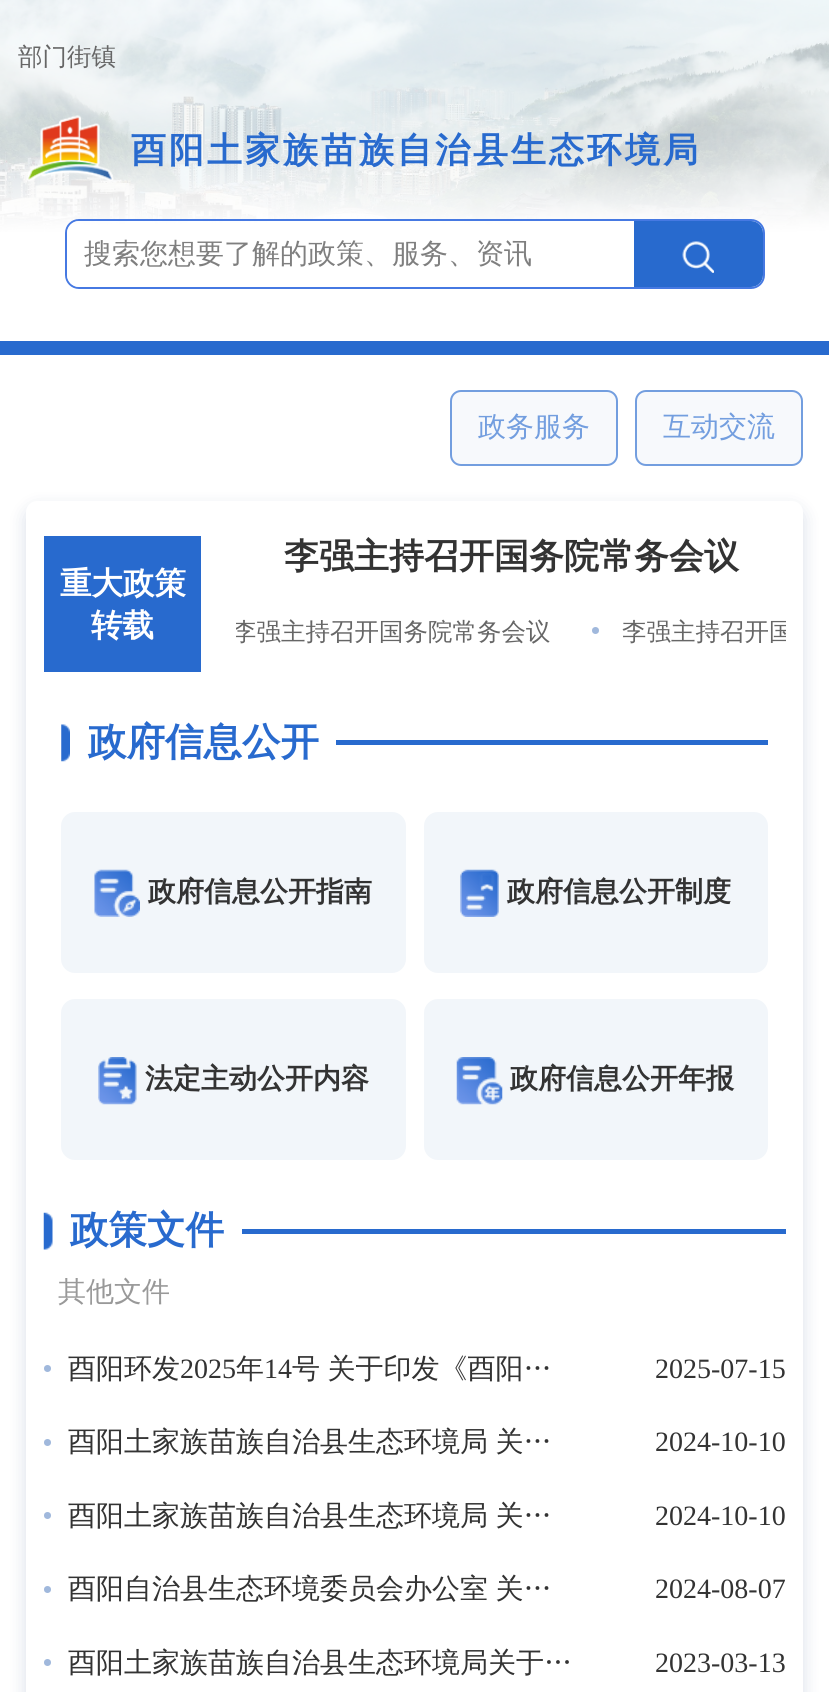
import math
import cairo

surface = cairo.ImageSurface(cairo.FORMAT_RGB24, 829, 1692)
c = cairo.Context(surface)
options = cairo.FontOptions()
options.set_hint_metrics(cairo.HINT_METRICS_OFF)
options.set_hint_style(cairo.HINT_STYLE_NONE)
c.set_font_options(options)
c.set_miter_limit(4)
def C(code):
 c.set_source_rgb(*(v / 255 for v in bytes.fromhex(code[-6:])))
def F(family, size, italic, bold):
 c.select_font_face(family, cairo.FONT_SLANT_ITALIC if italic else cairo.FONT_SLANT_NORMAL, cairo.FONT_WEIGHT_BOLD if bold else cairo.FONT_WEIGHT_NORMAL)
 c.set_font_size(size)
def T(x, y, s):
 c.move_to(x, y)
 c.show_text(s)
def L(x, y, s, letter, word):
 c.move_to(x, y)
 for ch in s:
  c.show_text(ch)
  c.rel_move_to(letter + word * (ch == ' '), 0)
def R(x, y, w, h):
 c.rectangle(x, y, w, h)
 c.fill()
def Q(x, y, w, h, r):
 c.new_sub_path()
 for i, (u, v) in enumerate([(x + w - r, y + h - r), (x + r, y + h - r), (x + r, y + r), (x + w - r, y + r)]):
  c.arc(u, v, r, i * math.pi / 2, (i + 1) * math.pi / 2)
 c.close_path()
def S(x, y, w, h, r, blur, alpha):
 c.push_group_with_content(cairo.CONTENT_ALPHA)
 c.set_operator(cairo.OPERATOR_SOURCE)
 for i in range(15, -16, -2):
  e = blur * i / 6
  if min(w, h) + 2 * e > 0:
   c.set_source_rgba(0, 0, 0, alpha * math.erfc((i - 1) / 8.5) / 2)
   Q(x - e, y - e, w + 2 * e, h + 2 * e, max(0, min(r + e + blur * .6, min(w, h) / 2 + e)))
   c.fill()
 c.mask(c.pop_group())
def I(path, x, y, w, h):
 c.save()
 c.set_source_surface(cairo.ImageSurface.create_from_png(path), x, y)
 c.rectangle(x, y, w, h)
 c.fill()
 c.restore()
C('ffffff')
c.paint()
I('1.png',0,0,829,232)
C('286ace')
R(0,341,829,14)
F('WenQuanYi Zen Hei Medium',24.5,0,0)
C('666666')
T(18,65,'部门街镇')
I('2.png',27,115,87,66)
F('WenQuanYi Zen Hei',35,0,1)
C('286ace')
L(131,162,'酉阳土家族苗族自治县生态环境局',3,0)
Q(66,220,698,68,13)
C('4679e2')
c.stroke()
c.set_source_rgba(1,1,1,0.85)
c.new_path()
c.move_to(79,221)
c.line_to(634,221)
c.line_to(634,287)
c.line_to(79,287)
c.curve_to(72.5,287,67,281.5,67,275)
c.line_to(67,233)
c.curve_to(67,226.5,72.5,221,79,221)
c.close_path()
c.fill()
F('WenQuanYi Zen Hei Medium',28,0,0)
C('7f7f7f')
T(84,263,'搜索您想要了解的政策、服务、资讯')
C('286ace')
c.new_path()
c.move_to(634,221)
c.line_to(751,221)
c.curve_to(757.5,221,763,226.5,763,233)
c.line_to(763,275)
c.curve_to(763,281.5,757.5,287,751,287)
c.line_to(634,287)
c.close_path()
c.fill()
I('3.png',682,241,32,32)
C('f7f9fc')
Q(451,391,166,74,10)
c.fill_preserve()
C('739edf')
c.stroke()
T(478,436,'政务服务')
C('f7f9fc')
Q(636,391,166,74,10)
c.fill_preserve()
C('739edf')
c.stroke()
T(663,436,'互动交流')
C('072a65')
S(26,508,777,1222,11,9,.15)
C('ffffff')
c.new_path()
c.move_to(37,501)
c.line_to(792,501)
c.curve_to(798,501,803,506,803,512)
c.line_to(803,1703)
c.line_to(26,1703)
c.line_to(26,512)
c.curve_to(26,506,31,501,37,501)
c.close_path()
c.fill()
C('286ace')
R(44,536,157,136)
F('WenQuanYi Zen Hei',31.5,0,1)
C('ffffff')
T(60,594,'重大政策')
T(91,636,'转载')
F('WenQuanYi Zen Hei',35,0,1)
C('333333')
T(284,568,'李强主持召开国务院常务会议')
c.save()
c.rectangle(236,614,550,39)
c.clip()
F('WenQuanYi Zen Hei Medium',24.5,0,0)
C('666666')
T(232,640,'李强主持召开国务院常务会议')
c.restore()
C('a0b8dc')
c.new_path()
c.arc(595.5,630.5,3.5,0,2 * math.pi)
c.fill()
c.save()
c.rectangle(236,614,550,39)
c.clip()
F('WenQuanYi Zen Hei Medium',24.5,0,0)
C('666666')
T(622,640,'李强主持召开国')
c.restore()
I('4.png',61,724,9,38)
F('WenQuanYi Zen Hei',38.5,0,1)
C('286ace')
T(88,755,'政府信息公开')
R(336,740,432,5)
C('f2f6fa')
Q(61,812,345,161,14)
c.fill()
I('5.png',94,869,46,48)
F('WenQuanYi Zen Hei',28,0,1)
C('333333')
T(148,901,'政府信息公开指南')
C('f2f6fa')
Q(424,812,344,161,14)
c.fill()
I('6.png',460,869,39,48)
C('333333')
T(507,901,'政府信息公开制度')
C('f2f6fa')
Q(61,999,345,161,14)
c.fill()
I('7.png',98,1057,39,48)
C('333333')
T(145,1088,'法定主动公开内容')
C('f2f6fa')
Q(424,999,344,161,14)
c.fill()
I('8.png',456,1057,47,48)
C('333333')
T(510,1088,'政府信息公开年报')
I('9.png',43,1212,10,38)
F('WenQuanYi Zen Hei',38.5,0,1)
C('286ace')
T(70,1243,'政策文件')
R(242,1229,544,5)
F('WenQuanYi Zen Hei Medium',28,0,0)
C('999999')
T(58,1301,'其他文件')
C('a0b8dc')
c.new_path()
c.arc(47.5,1368.5,3.5,0,2 * math.pi)
c.fill()
C('333333')
T(68,1378,'酉阳环发')
F('Liberation Serif',28,0,0)
T(180,1378,'2025')
F('WenQuanYi Zen Hei Medium',28,0,0)
T(236,1378,'年')
F('Liberation Serif',28,0,0)
T(264,1378,'14')
F('WenQuanYi Zen Hei Medium',28,0,0)
L(292,1378,'号 关于印发《酉阳…',0,-1)
F('Liberation Serif',28,0,0)
T(655,1378,'2025-07-15')
C('a0b8dc')
c.new_path()
c.arc(47.5,1442.5,3.5,0,2 * math.pi)
c.fill()
F('WenQuanYi Zen Hei Medium',28,0,0)
C('333333')
L(68,1451,'酉阳土家族苗族自治县生态环境局 关…',0,-1)
F('Liberation Serif',28,0,0)
T(655,1451,'2024-10-10')
C('a0b8dc')
c.new_path()
c.arc(47.5,1515.5,3.5,0,2 * math.pi)
c.fill()
F('WenQuanYi Zen Hei Medium',28,0,0)
C('333333')
L(68,1525,'酉阳土家族苗族自治县生态环境局 关…',0,-1)
F('Liberation Serif',28,0,0)
T(655,1525,'2024-10-10')
C('a0b8dc')
c.new_path()
c.arc(47.5,1589.5,3.5,0,2 * math.pi)
c.fill()
F('WenQuanYi Zen Hei Medium',28,0,0)
C('333333')
L(68,1598,'酉阳自治县生态环境委员会办公室 关…',0,-1)
F('Liberation Serif',28,0,0)
T(655,1598,'2024-08-07')
C('a0b8dc')
c.new_path()
c.arc(47.5,1662.5,3.5,0,2 * math.pi)
c.fill()
F('WenQuanYi Zen Hei Medium',28,0,0)
C('333333')
T(68,1672,'酉阳土家族苗族自治县生态环境局关于…')
F('Liberation Serif',28,0,0)
T(655,1672,'2023-03-13')
surface.write_to_png('o.png')
